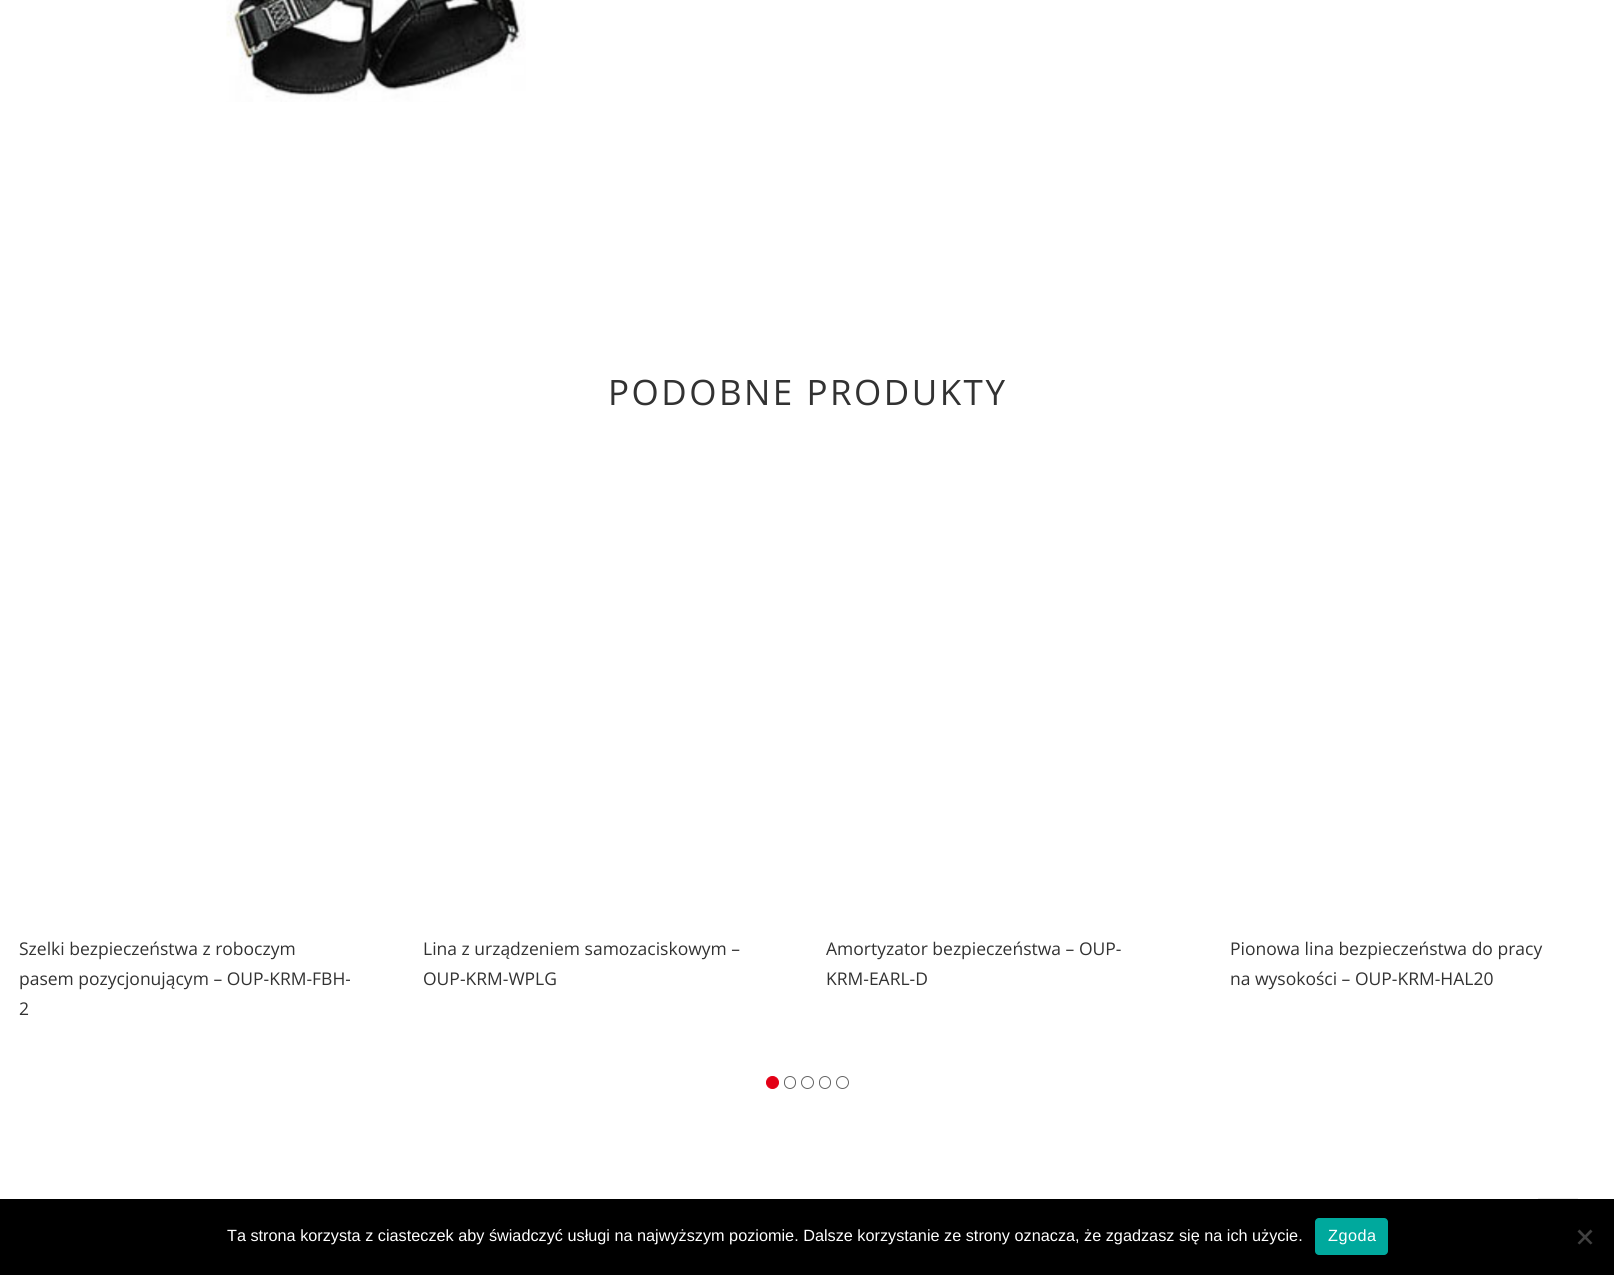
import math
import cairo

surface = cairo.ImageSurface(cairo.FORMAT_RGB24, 1614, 1275)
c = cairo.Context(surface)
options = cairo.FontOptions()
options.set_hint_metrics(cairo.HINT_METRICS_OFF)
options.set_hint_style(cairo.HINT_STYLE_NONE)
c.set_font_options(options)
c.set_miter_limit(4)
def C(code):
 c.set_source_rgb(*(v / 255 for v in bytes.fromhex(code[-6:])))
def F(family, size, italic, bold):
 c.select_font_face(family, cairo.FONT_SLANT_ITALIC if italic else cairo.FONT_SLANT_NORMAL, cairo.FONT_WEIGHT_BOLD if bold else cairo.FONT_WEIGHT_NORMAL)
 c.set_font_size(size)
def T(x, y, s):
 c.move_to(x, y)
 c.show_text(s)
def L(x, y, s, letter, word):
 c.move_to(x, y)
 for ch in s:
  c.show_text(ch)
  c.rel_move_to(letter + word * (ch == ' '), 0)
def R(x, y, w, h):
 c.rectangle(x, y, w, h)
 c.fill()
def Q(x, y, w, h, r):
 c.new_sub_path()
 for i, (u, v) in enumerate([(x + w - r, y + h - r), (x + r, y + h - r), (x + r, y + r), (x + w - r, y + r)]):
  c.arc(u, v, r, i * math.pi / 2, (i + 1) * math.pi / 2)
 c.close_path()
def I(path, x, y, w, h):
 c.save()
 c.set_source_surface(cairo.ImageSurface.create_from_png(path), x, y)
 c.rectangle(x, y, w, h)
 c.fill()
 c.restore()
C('ffffff')
c.paint()
I('1.png',226,0,300,102)
F('Open Sans',35,0,0)
C('323232')
L(608,405,'PODOBNE PRODUKTY',2.5,0)
F('Open Sans',17.5,0,0)
T(19,955,'Szelki bezpieczeństwa z roboczym')
T(19,985,'pasem pozycjonującym – OUP-KRM-FBH-')
T(19,1015,'2')
T(423,955,'Lina z urządzeniem samozaciskowym –')
T(423,985,'OUP-KRM-WPLG')
T(826,955,'Amortyzator bezpieczeństwa – OUP-')
T(826,985,'KRM-EARL-D')
T(1230,955,'Pionowa lina bezpieczeństwa do pracy')
T(1230,985,'na wysokości – OUP-KRM-HAL20')
C('e30016')
c.new_path()
c.arc(772.5,1082.5,6,0,2 * math.pi)
c.fill_preserve()
c.set_line_width(1)
c.stroke()
Q(784.5,1076.5,11,12,5.5)
C('646464')
c.stroke()
c.arc(807.5,1082.5,6,0,2 * math.pi)
c.stroke()
Q(819.5,1076.5,11,12,5.5)
c.stroke()
c.arc(842.5,1082.5,6,0,2 * math.pi)
c.stroke()
c.rectangle(1538.5,1198.5,39,39)
C('ebebeb')
c.stroke()
C('000000')
R(0,1199,1614,76)
F('Liberation Sans',16.25,0,0)
C('ffffff')
T(227,1241,'Ta strona korzysta z ciasteczek aby świadczyć usługi na najwyższym poziomie. Dalsze korzystanie ze strony oznacza, że zgadzasz się na ich użycie.')
C('00a99d')
Q(1315,1218,73,37,4)
c.fill()
C('ffffff')
L(1328,1241,'Zgoda',.5,0)
C('404040')
c.new_path()
c.move_to(1590.5,1229.5)
c.line_to(1592.5,1231.5)
c.line_to(1579.5,1244.5)
c.line_to(1577.5,1243)
c.close_path()
c.fill()
c.new_path()
c.move_to(1577.5,1231.5)
c.line_to(1579.5,1229.5)
c.line_to(1592.5,1243)
c.line_to(1590.5,1244.5)
c.close_path()
c.fill()
surface.write_to_png('o.png')
